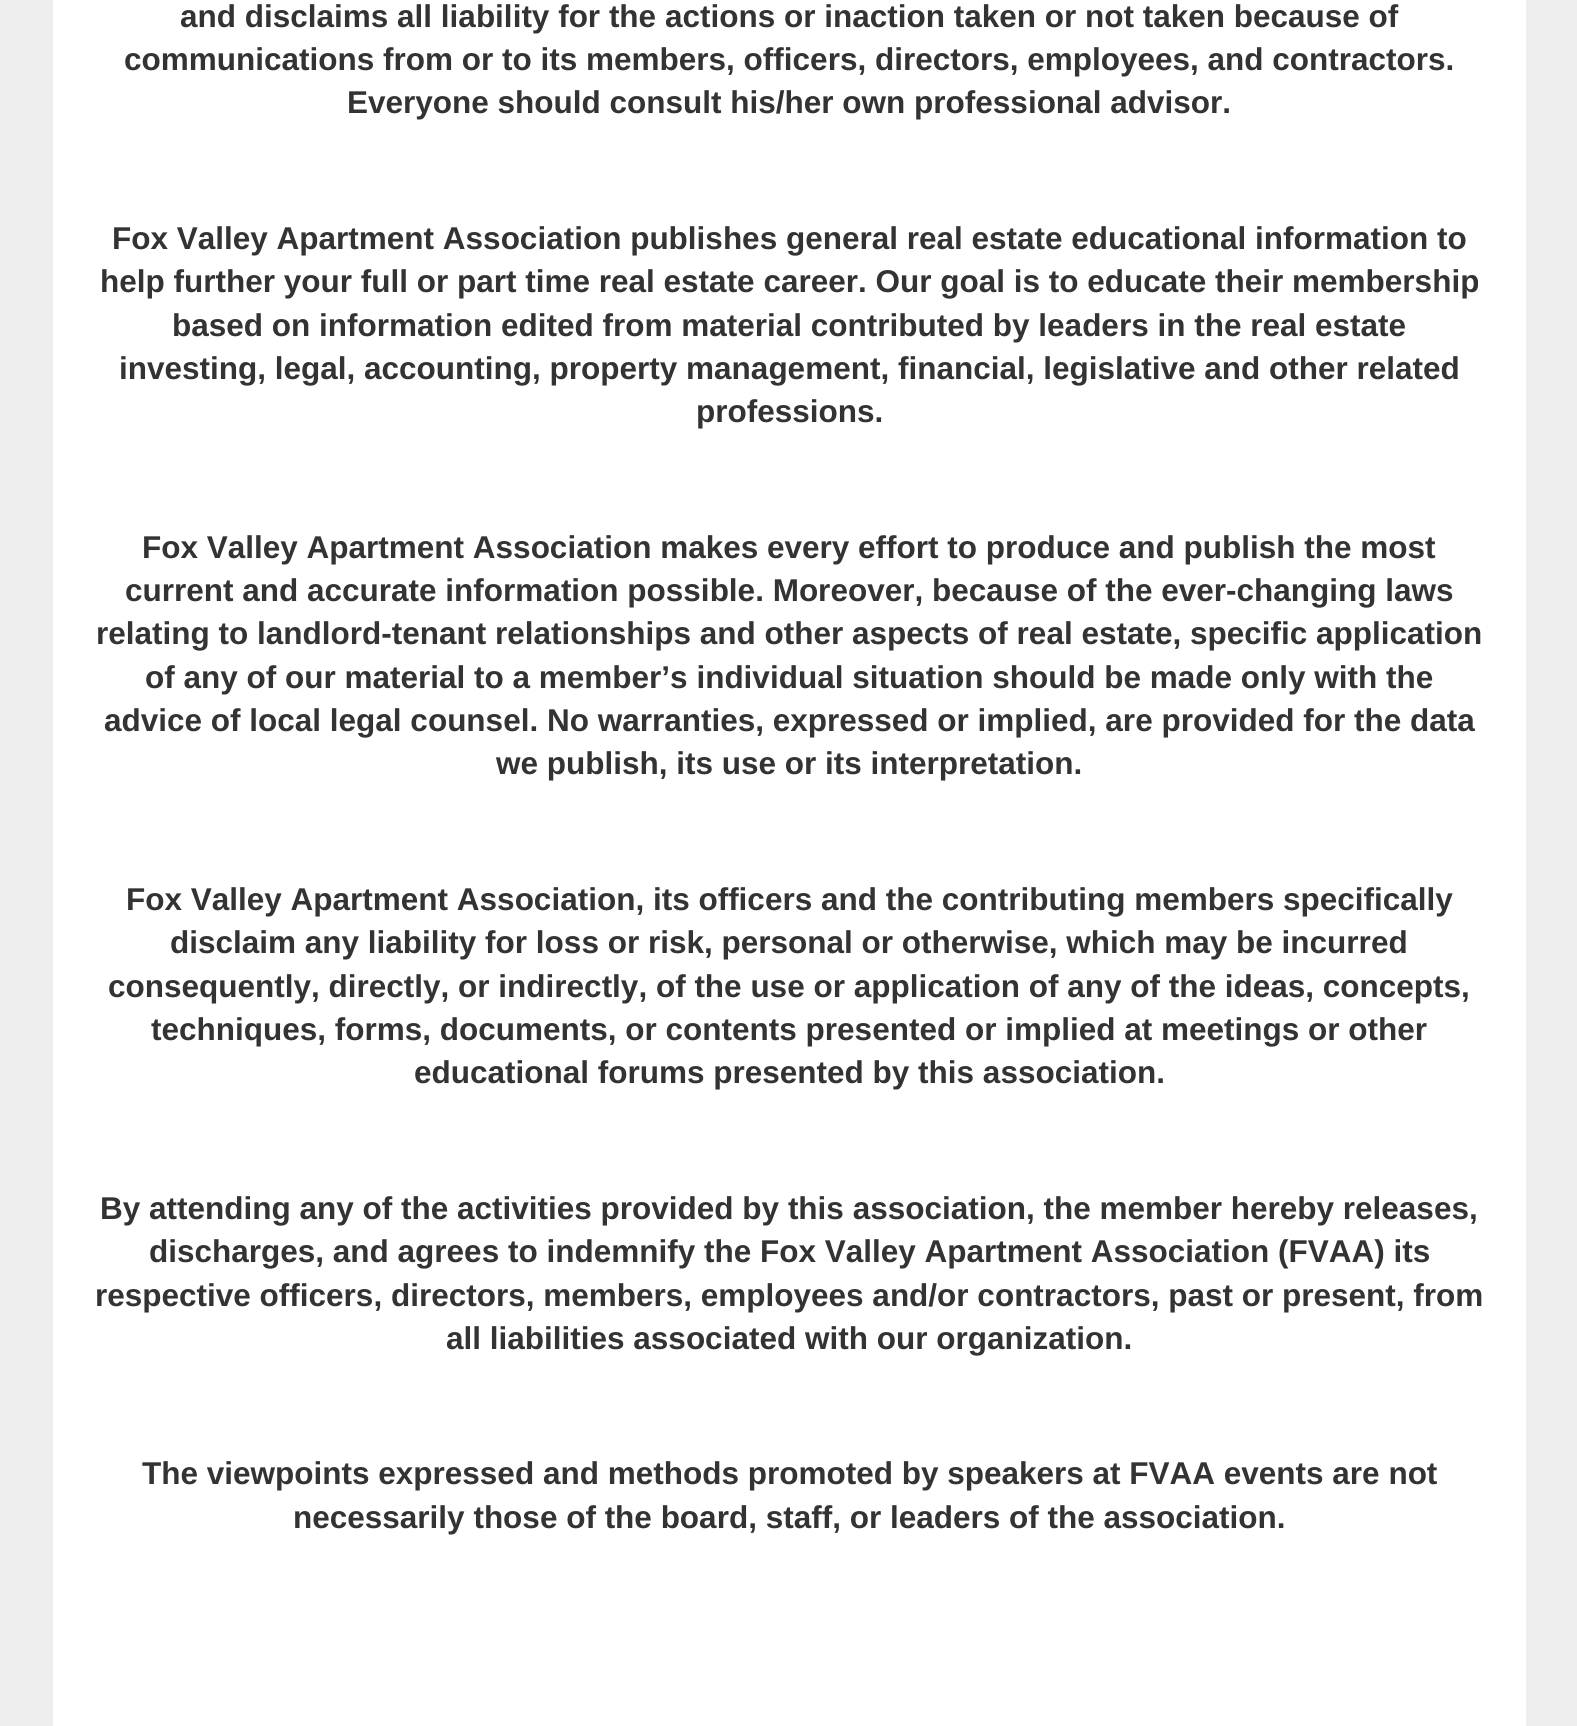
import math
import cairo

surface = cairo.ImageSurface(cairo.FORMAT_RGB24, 1577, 1726)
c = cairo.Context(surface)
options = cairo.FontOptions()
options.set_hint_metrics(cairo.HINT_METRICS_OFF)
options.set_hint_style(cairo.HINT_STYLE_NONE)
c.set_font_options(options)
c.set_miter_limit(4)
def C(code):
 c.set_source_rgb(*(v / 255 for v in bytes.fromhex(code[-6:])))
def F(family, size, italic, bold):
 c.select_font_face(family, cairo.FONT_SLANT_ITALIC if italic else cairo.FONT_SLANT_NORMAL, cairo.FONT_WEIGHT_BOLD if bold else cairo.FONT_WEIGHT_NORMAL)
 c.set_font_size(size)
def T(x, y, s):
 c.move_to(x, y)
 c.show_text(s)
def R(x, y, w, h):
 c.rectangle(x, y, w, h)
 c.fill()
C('eeeeee')
c.paint()
C('ffffff')
R(53,0,1473,1726)
F('Liberation Sans',31.5,0,1)
C('333333')
T(180,27,'and disclaims all liability for the actions or inaction taken or not taken because of')
T(124,70,'communications from or to its members, officers, directors, employees, and contractors.')
T(347,113,'Everyone should consult his/her own professional advisor.')
T(112,249,'Fox Valley Apartment Association publishes general real estate educational information to')
T(100,292,'help further your full or part time real estate career. Our goal is to educate their membership')
T(172,336,'based on information edited from material contributed by leaders in the real estate')
T(119,379,'investing, legal, accounting, property management, financial, legislative and other related')
T(696,422,'professions.')
T(142,558,'Fox Valley Apartment Association makes every effort to produce and publish the most')
T(125,601,'current and accurate information possible. Moreover, because of the ever-changing laws')
T(96,644,'relating to landlord-tenant relationships and other aspects of real estate, specific application')
T(145,688,'of any of our material to a member’s individual situation should be made only with the')
T(104,731,'advice of local legal counsel. No warranties, expressed or implied, are provided for the data')
T(496,774,'we publish, its use or its interpretation.')
T(126,910,'Fox Valley Apartment Association, its officers and the contributing members specifically')
T(170,953,'disclaim any liability for loss or risk, personal or otherwise, which may be incurred')
T(108,997,'consequently, directly, or indirectly, of the use or application of any of the ideas, concepts,')
T(151,1040,'techniques, forms, documents, or contents presented or implied at meetings or other')
T(414,1083,'educational forums presented by this association.')
T(100,1219,'By attending any of the activities provided by this association, the member hereby releases,')
T(149,1262,'discharges, and agrees to indemnify the Fox Valley Apartment Association (FVAA) its')
T(95,1306,'respective officers, directors, members, employees and/or contractors, past or present, from')
T(446,1349,'all liabilities associated with our organization.')
T(142,1484,'The viewpoints expressed and methods promoted by speakers at FVAA events are not')
T(293,1528,'necessarily those of the board, staff, or leaders of the association.')
surface.write_to_png('o.png')
